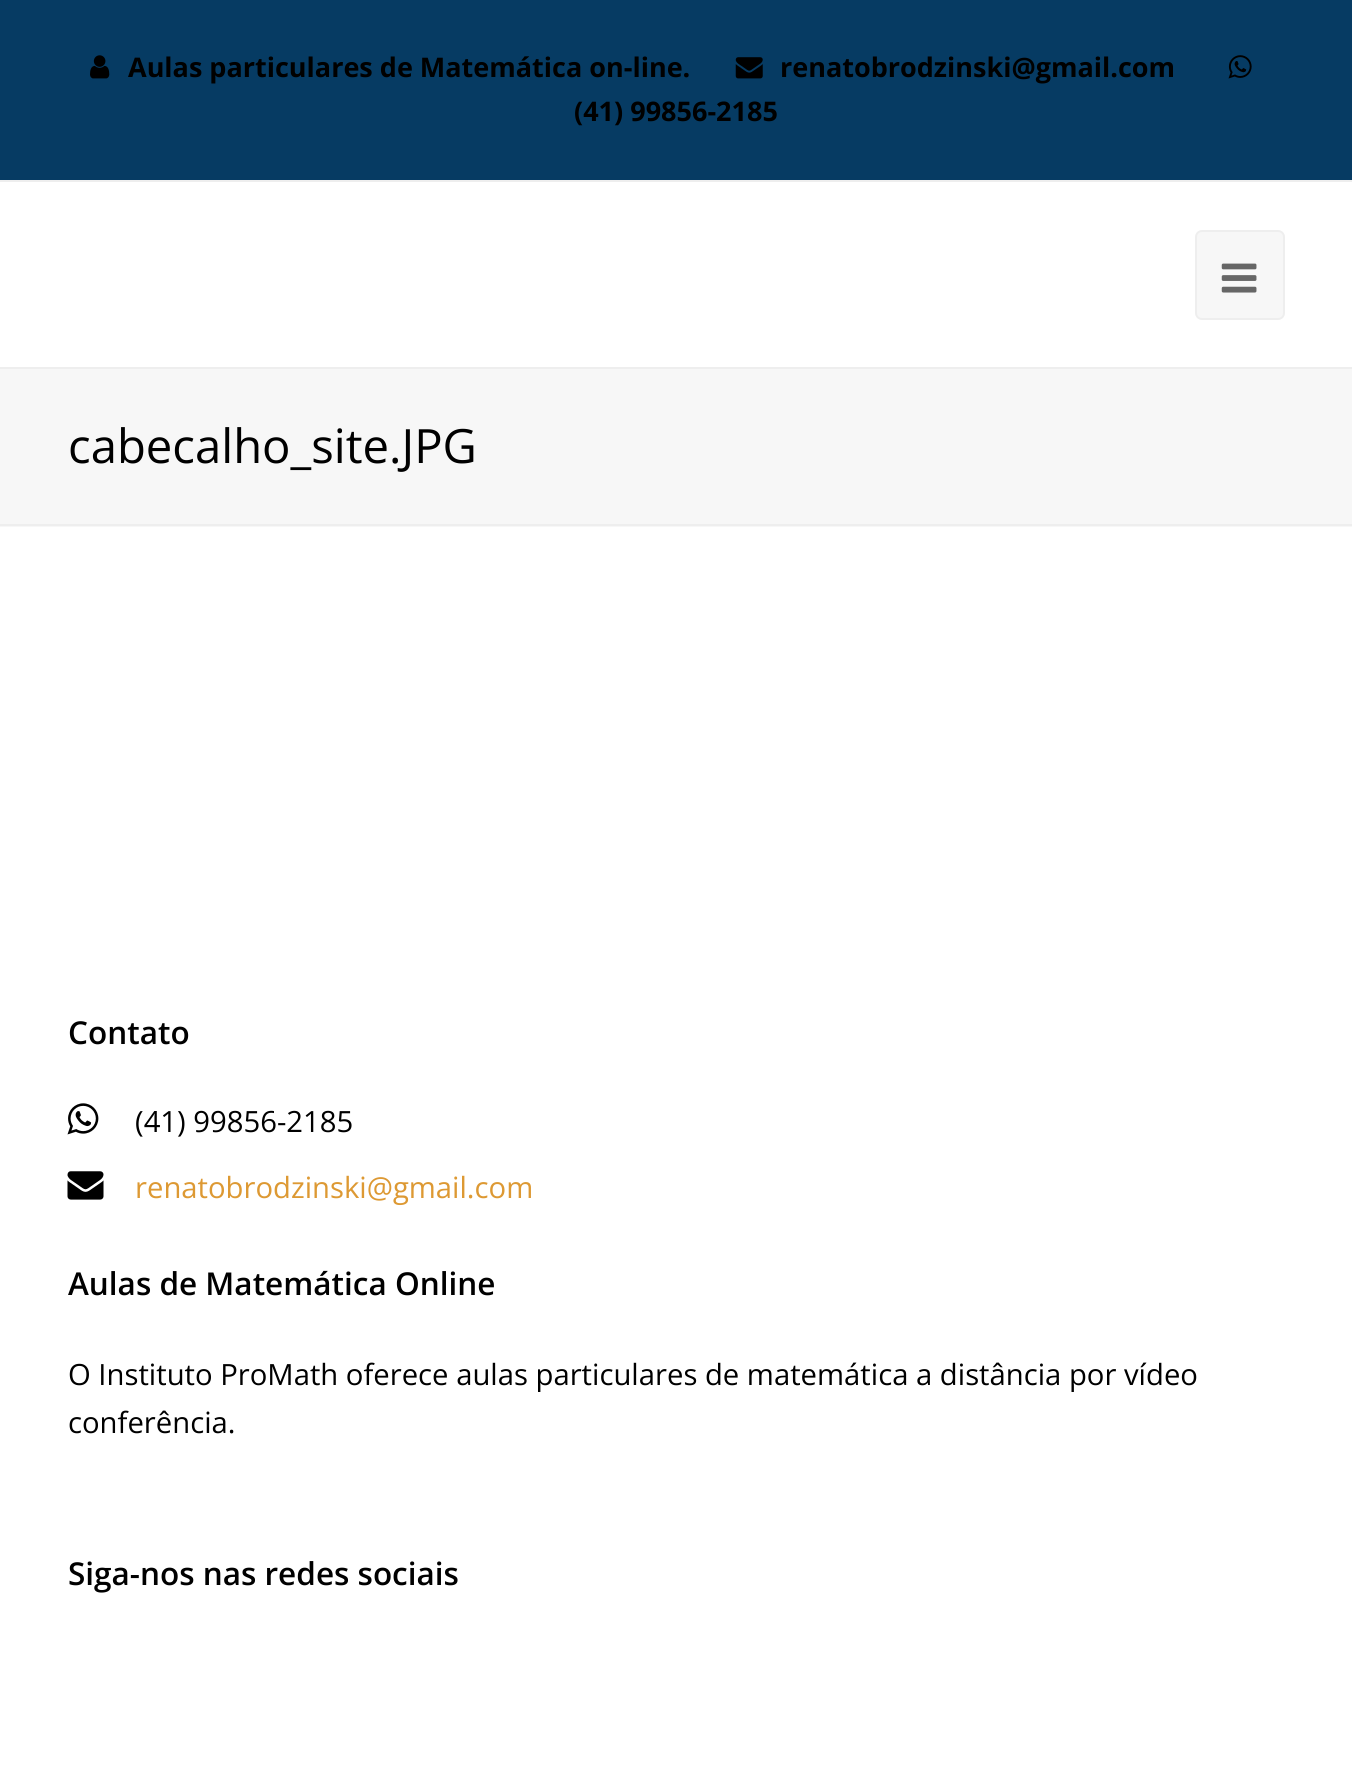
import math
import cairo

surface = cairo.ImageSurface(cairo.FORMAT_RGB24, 1352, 1768)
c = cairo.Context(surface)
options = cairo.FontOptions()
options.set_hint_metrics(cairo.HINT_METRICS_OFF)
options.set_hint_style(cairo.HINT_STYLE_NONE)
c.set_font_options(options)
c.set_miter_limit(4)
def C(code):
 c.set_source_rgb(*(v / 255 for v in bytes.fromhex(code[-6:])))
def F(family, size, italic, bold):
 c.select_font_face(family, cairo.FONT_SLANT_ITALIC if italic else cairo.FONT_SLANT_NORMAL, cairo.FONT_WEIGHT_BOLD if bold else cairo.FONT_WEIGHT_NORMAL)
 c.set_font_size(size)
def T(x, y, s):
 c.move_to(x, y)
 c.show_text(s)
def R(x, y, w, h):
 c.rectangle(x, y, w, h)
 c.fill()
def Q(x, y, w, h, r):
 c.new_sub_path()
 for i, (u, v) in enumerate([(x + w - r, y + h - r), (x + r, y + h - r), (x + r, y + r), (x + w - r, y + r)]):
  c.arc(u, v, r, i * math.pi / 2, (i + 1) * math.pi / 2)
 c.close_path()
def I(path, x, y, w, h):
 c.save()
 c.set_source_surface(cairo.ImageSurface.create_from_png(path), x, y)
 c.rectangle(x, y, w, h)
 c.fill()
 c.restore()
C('ffffff')
c.paint()
C('063b63')
R(0,0,1352,180)
C('eeeeee')
R(0,180,1352,2)
I('1.png',90,55,20,24)
F('Open Sans',27,0,1)
C('000000')
T(128,77,'Aulas particulares de Matemática on-line.')
I('2.png',735,57,28,22)
T(780,77,'renatobrodzinski@gmail.com')
I('3.png',1228,55,24,24)
T(574,121,'(41) 99856-2185')
C('f7f7f7')
Q(1196,231,88,88,6)
c.fill_preserve()
C('eeeeee')
c.stroke()
I('4.png',1221,263,36,30)
C('f7f7f7')
R(0,369,1352,158)
C('eeeeee')
R(0,367,1352,2)
R(0,524,1352,2)
F('Open Sans',47.25,0,0)
C('000000')
T(68,463,'cabecalho_site.JPG')
F('Open Sans SemiBold',31.5,0,0)
T(68,1044,'Contato')
I('5.png',67,1103,32,32)
F('Open Sans',29.25,0,0)
T(135,1132,'(41) 99856-2185')
I('6.png',67,1171,37,29)
C('dd9933')
T(135,1198,'renatobrodzinski@gmail.com')
F('Open Sans SemiBold',31.5,0,0)
C('000000')
T(68,1295,'Aulas de Matemática Online')
F('Open Sans',29.25,0,0)
T(68,1385,'O Instituto ProMath oferece aulas particulares de matemática a distância por vídeo')
T(68,1433,'conferência.')
F('Open Sans SemiBold',31.5,0,0)
T(68,1585,'Siga-nos nas redes sociais')
surface.write_to_png('o.png')
